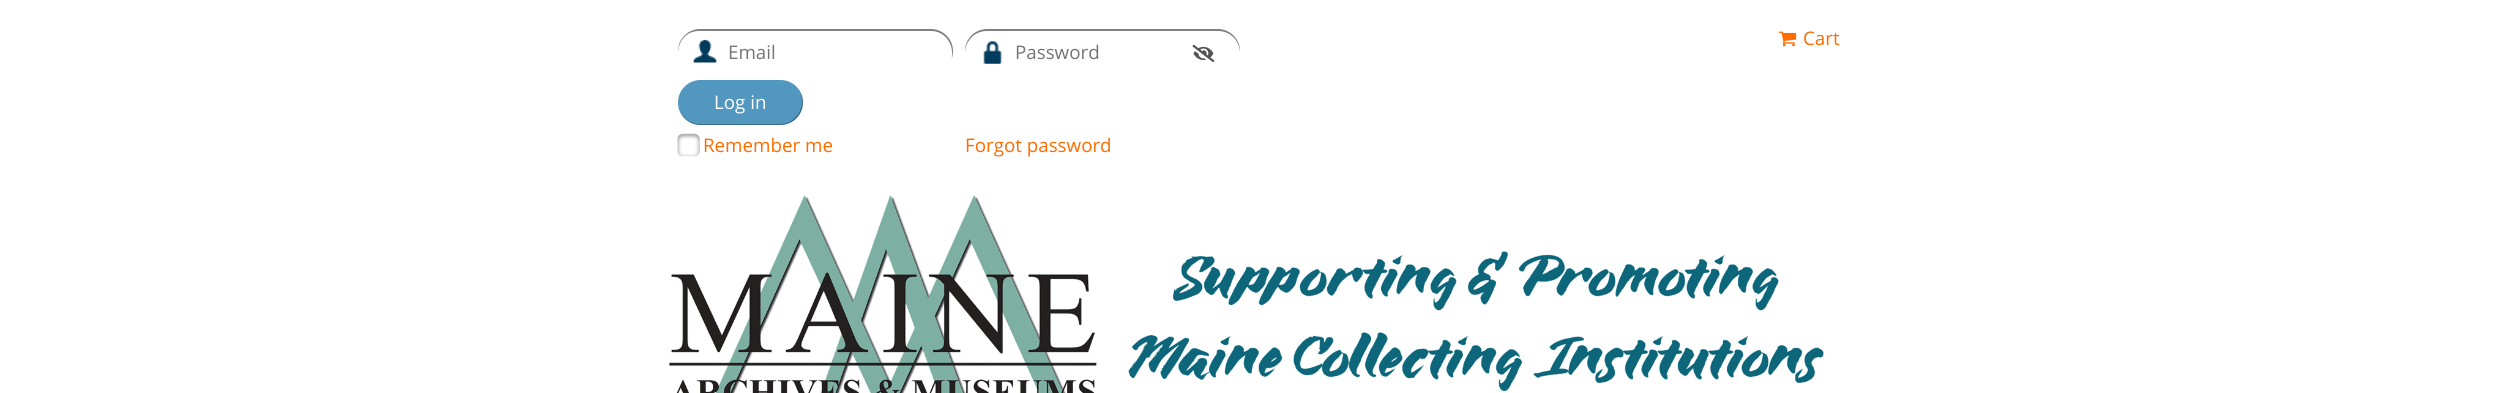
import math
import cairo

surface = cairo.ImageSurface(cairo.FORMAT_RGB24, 2504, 393)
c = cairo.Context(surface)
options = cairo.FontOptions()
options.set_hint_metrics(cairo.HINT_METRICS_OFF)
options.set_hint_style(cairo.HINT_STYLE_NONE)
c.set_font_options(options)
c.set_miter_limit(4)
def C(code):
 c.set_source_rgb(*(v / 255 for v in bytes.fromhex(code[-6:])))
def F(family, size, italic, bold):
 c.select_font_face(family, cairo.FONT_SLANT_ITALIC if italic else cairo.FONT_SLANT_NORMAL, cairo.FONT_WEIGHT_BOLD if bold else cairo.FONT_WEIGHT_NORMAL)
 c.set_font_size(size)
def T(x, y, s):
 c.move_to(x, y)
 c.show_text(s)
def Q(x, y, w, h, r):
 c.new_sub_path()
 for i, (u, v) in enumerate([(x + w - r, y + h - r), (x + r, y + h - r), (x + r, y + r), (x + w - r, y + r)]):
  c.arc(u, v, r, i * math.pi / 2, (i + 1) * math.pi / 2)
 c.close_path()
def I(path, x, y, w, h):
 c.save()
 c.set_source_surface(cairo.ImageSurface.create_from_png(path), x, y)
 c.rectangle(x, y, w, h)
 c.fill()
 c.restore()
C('ffffff')
c.paint()
I('1.png',1778,31,19,16)
F('Open Sans',18.75,0,0)
C('ff6c00')
T(1803,45,'Cart')
I('2.png',693,39,24,24)
C('808080')
c.new_path()
c.move_to(699,31)
c.line_to(931,31)
c.curve_to(943,31,952,41,952,53)
c.curve_to(952,56,952,59,951,61)
c.curve_to(952,58,953,55,953,51)
c.curve_to(953,39,943,29,931,29)
c.line_to(700,29)
c.curve_to(688,29,678,39,678,51)
c.line_to(678,52)
c.curve_to(679,40,687,31,699,31)
c.close_path()
c.fill()
C('757575')
T(728,59,'Email')
I('3.png',983,41,19,23)
C('808080')
c.new_path()
c.move_to(987,31)
c.line_to(1218,31)
c.curve_to(1230,31,1239,40,1240,52)
c.line_to(1240,51)
c.curve_to(1240,39,1230,29,1218,29)
c.line_to(987,29)
c.curve_to(975,29,965,39,965,51)
c.line_to(965,52)
c.curve_to(966,40,975,31,987,31)
c.close_path()
c.fill()
C('757575')
T(1015,59,'Password')
I('4.png',1192,44,23,19)
C('5297bf')
Q(678,80,125,45,22.5)
c.fill()
c.set_source_rgba(0,0,0,0.3)
c.new_path()
c.move_to(678,102)
c.curve_to(678,115,688,125,700,125)
c.line_to(780,125)
c.curve_to(793,125,803,115,803,102)
c.curve_to(803,97,801,92,797,88)
c.curve_to(800,91,802,96,802,101)
c.curve_to(802,114,792,124,780,124)
c.line_to(700,124)
c.curve_to(688,124,678,114,678,102)
c.close_path()
c.fill()
C('ffffff')
T(714,109,'Log in')
I('5.png',677,133,23,24)
C('ff6c00')
T(703,152,'Remember me')
T(965,152,'Forgot password')
I('6.png',669,195,1155,198)
surface.write_to_png('o.png')
